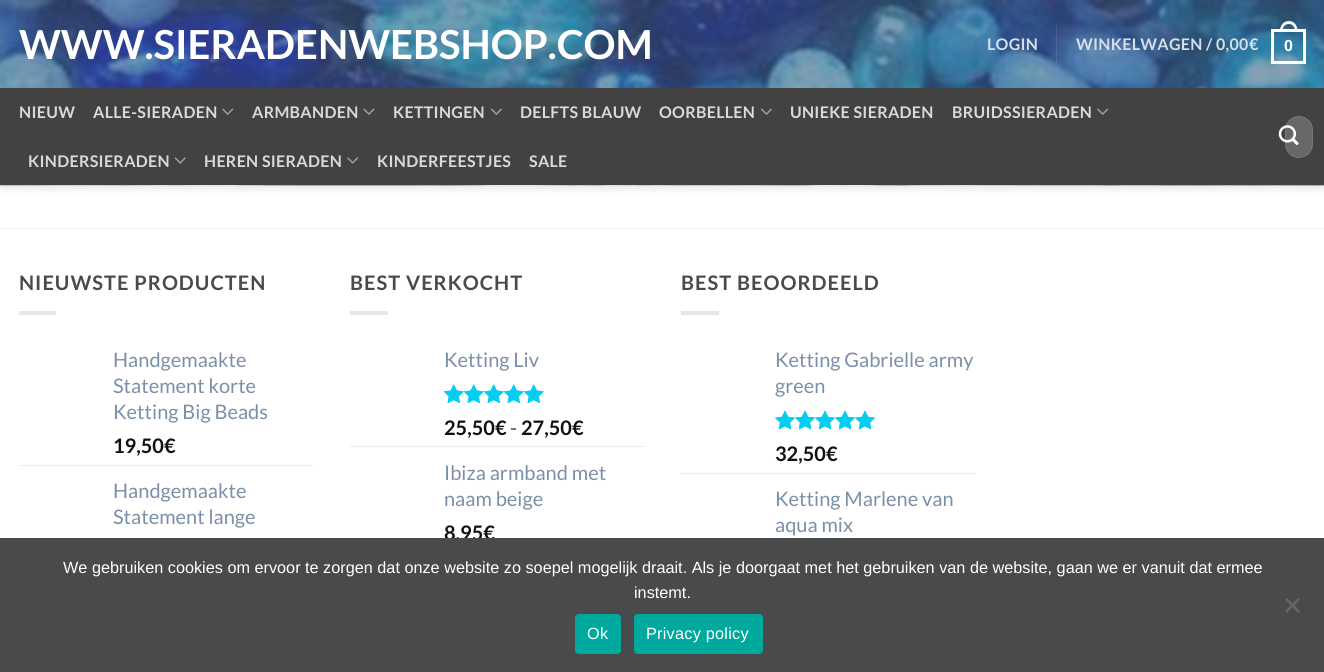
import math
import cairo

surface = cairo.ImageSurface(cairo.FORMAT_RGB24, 1324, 672)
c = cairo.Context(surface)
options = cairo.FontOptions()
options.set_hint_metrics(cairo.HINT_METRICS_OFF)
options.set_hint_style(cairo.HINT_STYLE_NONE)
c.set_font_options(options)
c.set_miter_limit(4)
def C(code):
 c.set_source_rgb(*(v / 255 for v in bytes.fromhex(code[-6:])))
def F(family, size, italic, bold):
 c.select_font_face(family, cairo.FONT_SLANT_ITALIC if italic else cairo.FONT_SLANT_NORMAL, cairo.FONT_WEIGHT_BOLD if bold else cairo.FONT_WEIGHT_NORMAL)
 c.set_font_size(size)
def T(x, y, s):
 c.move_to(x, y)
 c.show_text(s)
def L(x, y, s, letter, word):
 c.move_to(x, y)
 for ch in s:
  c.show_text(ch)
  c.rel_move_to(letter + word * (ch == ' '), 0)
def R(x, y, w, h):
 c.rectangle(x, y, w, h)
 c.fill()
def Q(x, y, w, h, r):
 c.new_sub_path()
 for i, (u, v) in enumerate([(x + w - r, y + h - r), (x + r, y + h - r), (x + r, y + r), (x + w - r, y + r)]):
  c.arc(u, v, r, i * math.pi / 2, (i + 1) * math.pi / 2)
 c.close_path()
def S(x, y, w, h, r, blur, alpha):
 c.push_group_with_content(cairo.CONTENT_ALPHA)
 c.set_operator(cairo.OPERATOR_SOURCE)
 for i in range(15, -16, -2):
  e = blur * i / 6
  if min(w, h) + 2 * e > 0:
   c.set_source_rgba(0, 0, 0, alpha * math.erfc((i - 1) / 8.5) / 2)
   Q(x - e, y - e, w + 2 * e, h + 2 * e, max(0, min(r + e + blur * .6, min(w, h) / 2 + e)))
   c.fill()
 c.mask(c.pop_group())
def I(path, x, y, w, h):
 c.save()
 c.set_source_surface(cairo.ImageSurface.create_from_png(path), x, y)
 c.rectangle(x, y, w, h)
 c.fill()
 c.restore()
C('ffffff')
c.paint()
C('000000')
S(1,1,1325,185,0,6,.15)
I('1.png',0,0,1324,186)
F('Lato',40,0,1)
C('ffffff')
T(19,59,'WWW.SIERADENWEBSHOP.COM')
F('Lato',16,0,1)
C('d6dee9')
L(987,50,'LOGIN',.3,0)
c.set_source_rgba(1,1,1,0.1)
R(1056,25,1,38)
C('d6dee9')
L(1076,50,'WINKELWAGEN',.3,0)
L(1206,50,'/',.3,0)
L(1216,50,'0,00',.3,0)
C('d5e5ed')
L(1249,50,'€',.3,0)
c.rectangle(1272.5,30.5,32,32)
C('ffffff')
c.set_line_width(3)
c.stroke()
c.set_fill_rule(cairo.FILL_RULE_EVEN_ODD)
c.new_path()
c.move_to(1289,21)
c.curve_to(1294.5,21,1297.5,26,1297.5,31)
c.line_to(1280,31)
c.curve_to(1280,26,1283,21,1289,21)
c.close_path()
c.move_to(1289,24)
c.curve_to(1293,24,1295,27.5,1295,31)
c.line_to(1282.5,31)
c.curve_to(1282.5,27.5,1284.5,24,1289,24)
c.close_path()
c.fill()
F('Liberation Sans',16,0,1)
L(1284,51,'0',.3,0)
C('424242')
R(0,88,1324,97)
F('Lato',16,0,1)
C('d9d9d9')
L(19,118,'NIEUW',.3,0)
L(93,118,'ALLE-SIERADEN',.3,0)
I('2.png',222,108,12,7)
L(252,118,'ARMBANDEN',.3,0)
I('3.png',363,108,12,7)
L(393,118,'KETTINGEN',.3,0)
I('4.png',491,108,11,7)
L(520,118,'DELFTS BLAUW',.3,0)
L(659,118,'OORBELLEN',.3,0)
I('4.png',761,108,11,7)
L(790,118,'UNIEKE SIERADEN',.3,0)
L(952,118,'BRUIDSSIERADEN',.3,0)
I('2.png',1097,108,12,7)
L(28,167,'KINDERSIERADEN',.3,0)
I('5.png',174,157,12,7)
L(204,167,'HEREN SIERADEN',.3,0)
I('6.png',347,157,12,7)
L(377,167,'KINDERFEESTJES',.3,0)
L(529,167,'SALE',.3,0)
C('686868')
Q(1285,116,28,42,14)
c.fill()
Q(1285.5,116.5,27,41,13.5)
c.set_source_rgba(1,1,1,0.09)
c.set_line_width(1)
c.stroke()
I('7.png',1278,125,21,20)
C('f2f2f2')
R(0,228,1324,1)
F('Lato',20,0,1)
C('4a4a4a')
L(19,290,'NIEUWSTE PRODUCTEN',1,0)
C('e6e6e6')
R(19,311,37,4)
F('Lato',20,0,0)
C('7b8fa8')
T(113,367,'Handgemaakte')
T(113,393,'Statement korte')
T(113,419,'Ketting Big Beads')
F('Lato',20,0,1)
C('111111')
T(113,453,'19,50€')
C('ececec')
R(19,465,294,1)
F('Lato',20,0,0)
C('7b8fa8')
T(113,498,'Handgemaakte')
T(113,524,'Statement lange')
F('Lato',20,0,1)
C('4a4a4a')
L(350,290,'BEST VERKOCHT',1,0)
C('e6e6e6')
R(350,311,38,4)
F('Lato',20,0,0)
C('7b8fa8')
T(444,367,'Ketting Liv')
I('8.png',444,384,100,20)
I('9.png',444,384,100,20)
F('Lato',20,0,1)
C('111111')
T(444,435,'25,50€')
F('Lato',20,0,0)
C('4a4a4a')
T(510,435,'-')
F('Lato',20,0,1)
C('111111')
T(521,435,'27,50€')
C('ececec')
R(350,446,294,1)
F('Lato',20,0,0)
C('7b8fa8')
T(444,480,'Ibiza armband met')
T(444,506,'naam beige')
F('Lato',20,0,1)
C('111111')
T(444,540,'8,95€')
C('4a4a4a')
L(681,290,'BEST BEOORDEELD',1,0)
C('e6e6e6')
R(681,311,38,4)
F('Lato',20,0,0)
C('7b8fa8')
T(775,367,'Ketting Gabrielle army')
T(775,393,'green')
I('10.png',775,410,100,20)
I('11.png',775,410,100,20)
F('Lato',20,0,1)
C('111111')
T(775,461,'32,50€')
C('ececec')
R(681,473,294,1)
F('Lato',20,0,0)
C('7b8fa8')
T(775,506,'Ketting Marlene van')
T(775,532,'aqua mix')
C('494a4c')
R(0,538,1324,134)
F('Liberation Sans',16.25,0,0)
C('ffffff')
T(63,573,'We gebruiken cookies om ervoor te zorgen dat onze website zo soepel mogelijk draait. Als je doorgaat met het gebruiken van de website, gaan we er vanuit dat ermee')
T(634,598,'instemt.')
C('656566')
c.set_fill_rule(cairo.FILL_RULE_WINDING)
c.new_path()
c.move_to(1298,598)
c.line_to(1300,599.5)
c.line_to(1287,613)
c.line_to(1285,611)
c.close_path()
c.fill()
c.new_path()
c.move_to(1285,599.5)
c.line_to(1287,598)
c.line_to(1300,611)
c.line_to(1298,613)
c.close_path()
c.fill()
C('00a99d')
Q(575,614,46,40,4)
c.fill()
C('ffffff')
L(587,639,'Ok',.25,0)
C('00a99d')
Q(634,614,129,40,4)
c.fill()
C('ffffff')
L(646,639,'Privacy policy',.25,0)
surface.write_to_png('o.png')
